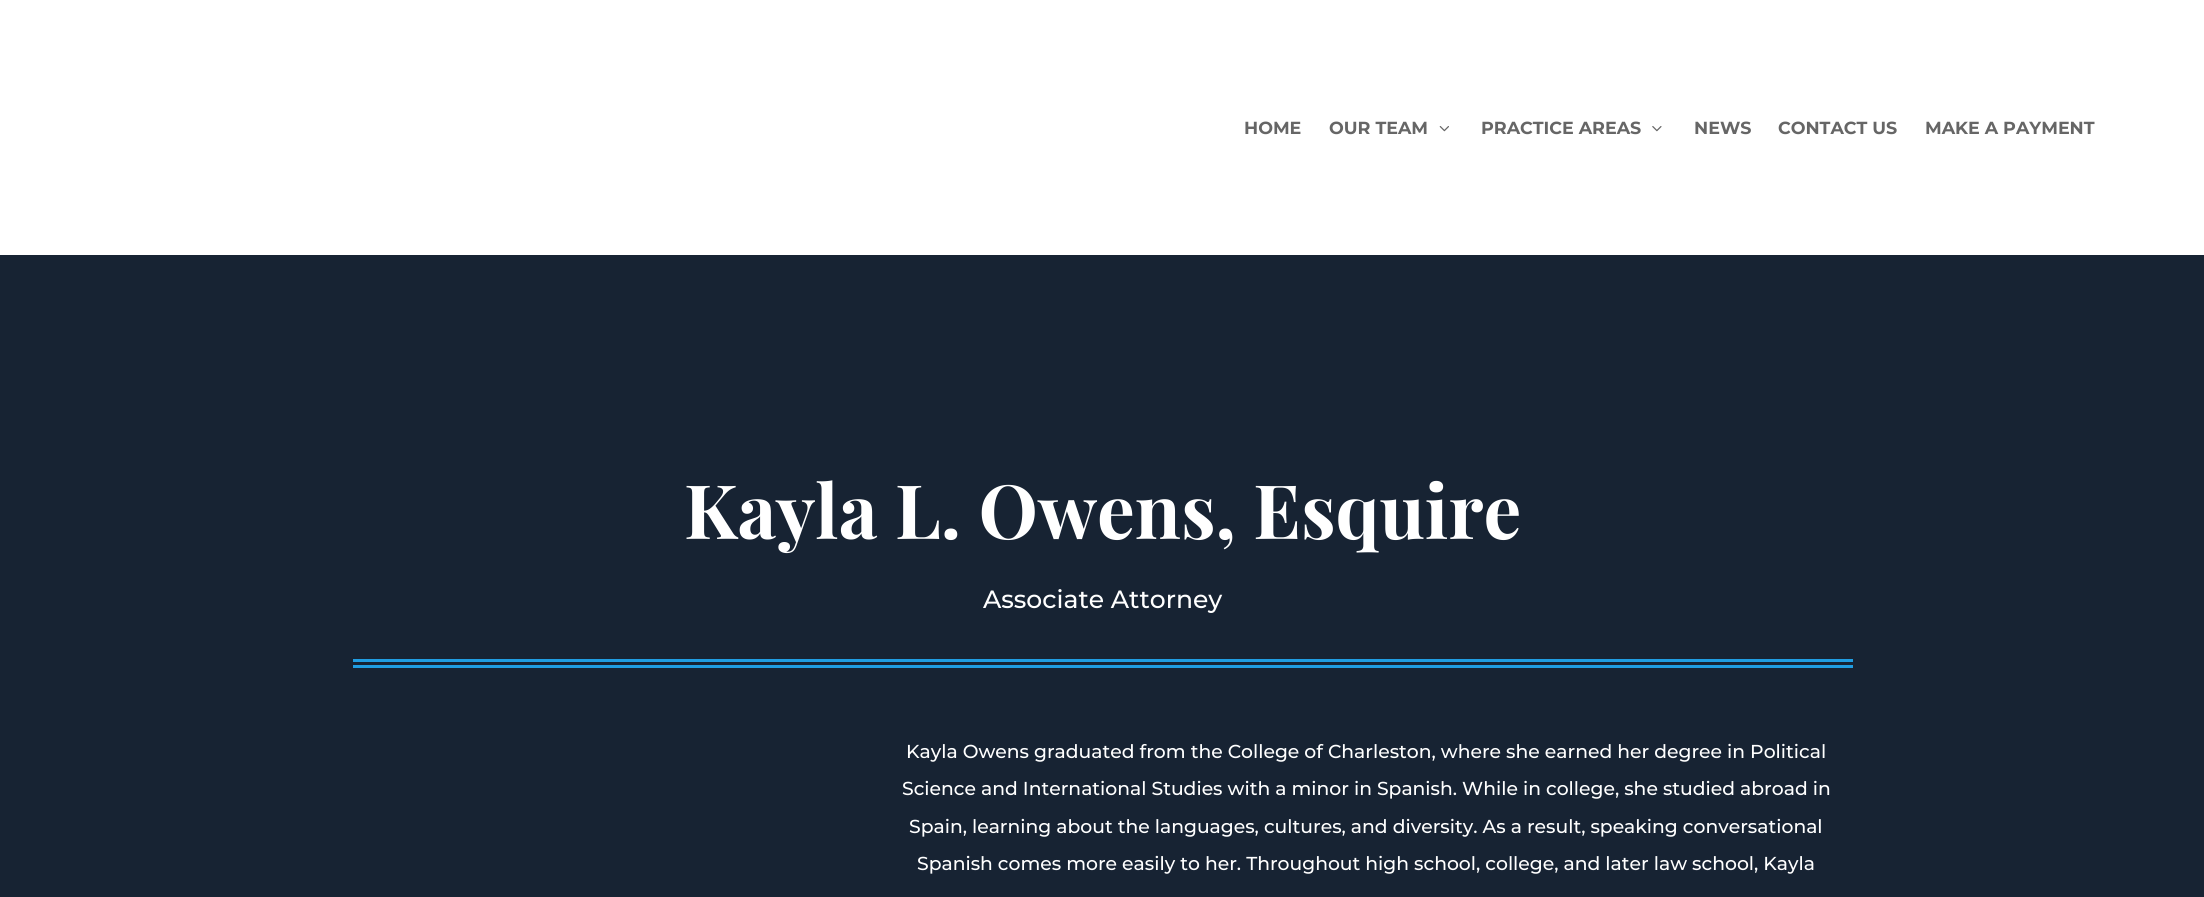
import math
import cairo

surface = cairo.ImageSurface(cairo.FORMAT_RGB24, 2204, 897)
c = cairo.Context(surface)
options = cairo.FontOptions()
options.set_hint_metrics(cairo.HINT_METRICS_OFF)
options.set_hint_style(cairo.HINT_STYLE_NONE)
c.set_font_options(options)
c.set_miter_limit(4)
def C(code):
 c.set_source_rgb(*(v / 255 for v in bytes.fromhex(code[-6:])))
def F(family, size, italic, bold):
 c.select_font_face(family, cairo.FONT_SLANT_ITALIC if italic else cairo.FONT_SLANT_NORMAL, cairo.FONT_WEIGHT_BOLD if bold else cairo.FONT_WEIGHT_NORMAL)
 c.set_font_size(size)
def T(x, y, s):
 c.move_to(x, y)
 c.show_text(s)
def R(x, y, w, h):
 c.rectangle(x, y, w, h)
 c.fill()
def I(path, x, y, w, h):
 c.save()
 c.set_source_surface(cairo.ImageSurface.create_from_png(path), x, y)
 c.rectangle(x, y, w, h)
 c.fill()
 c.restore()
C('ffffff')
c.paint()
F('Montserrat',17.5,0,1)
C('666666')
T(1244,134,'HOME')
T(1329,134,'OUR TEAM')
I('1.png',1439,126,10,6)
T(1481,134,'PRACTICE AREAS')
I('2.png',1652,126,10,6)
T(1694,134,'NEWS')
T(1778,134,'CONTACT US')
T(1925,134,'MAKE A PAYMENT')
C('172333')
R(0,255,2204,642)
F('Playfair Display',75,0,1)
C('ffffff')
T(684,539,'Kayla L. Owens, Esquire')
F('Montserrat Medium',25,0,0)
T(983,608,'Associate Attorney')
C('209de2')
R(353,659,1500,3)
R(353,665,1500,3)
F('Montserrat Medium',18.75,0,0)
C('ffffff')
T(906,758,'Kayla Owens graduated from the College of Charleston, where she earned her degree in Political')
T(902,795,'Science and International Studies with a minor in Spanish. While in college, she studied abroad in')
T(909,833,'Spain, learning about the languages, cultures, and diversity. As a result, speaking conversational')
T(917,870,'Spanish comes more easily to her. Throughout high school, college, and later law school, Kayla')
surface.write_to_png('o.png')
